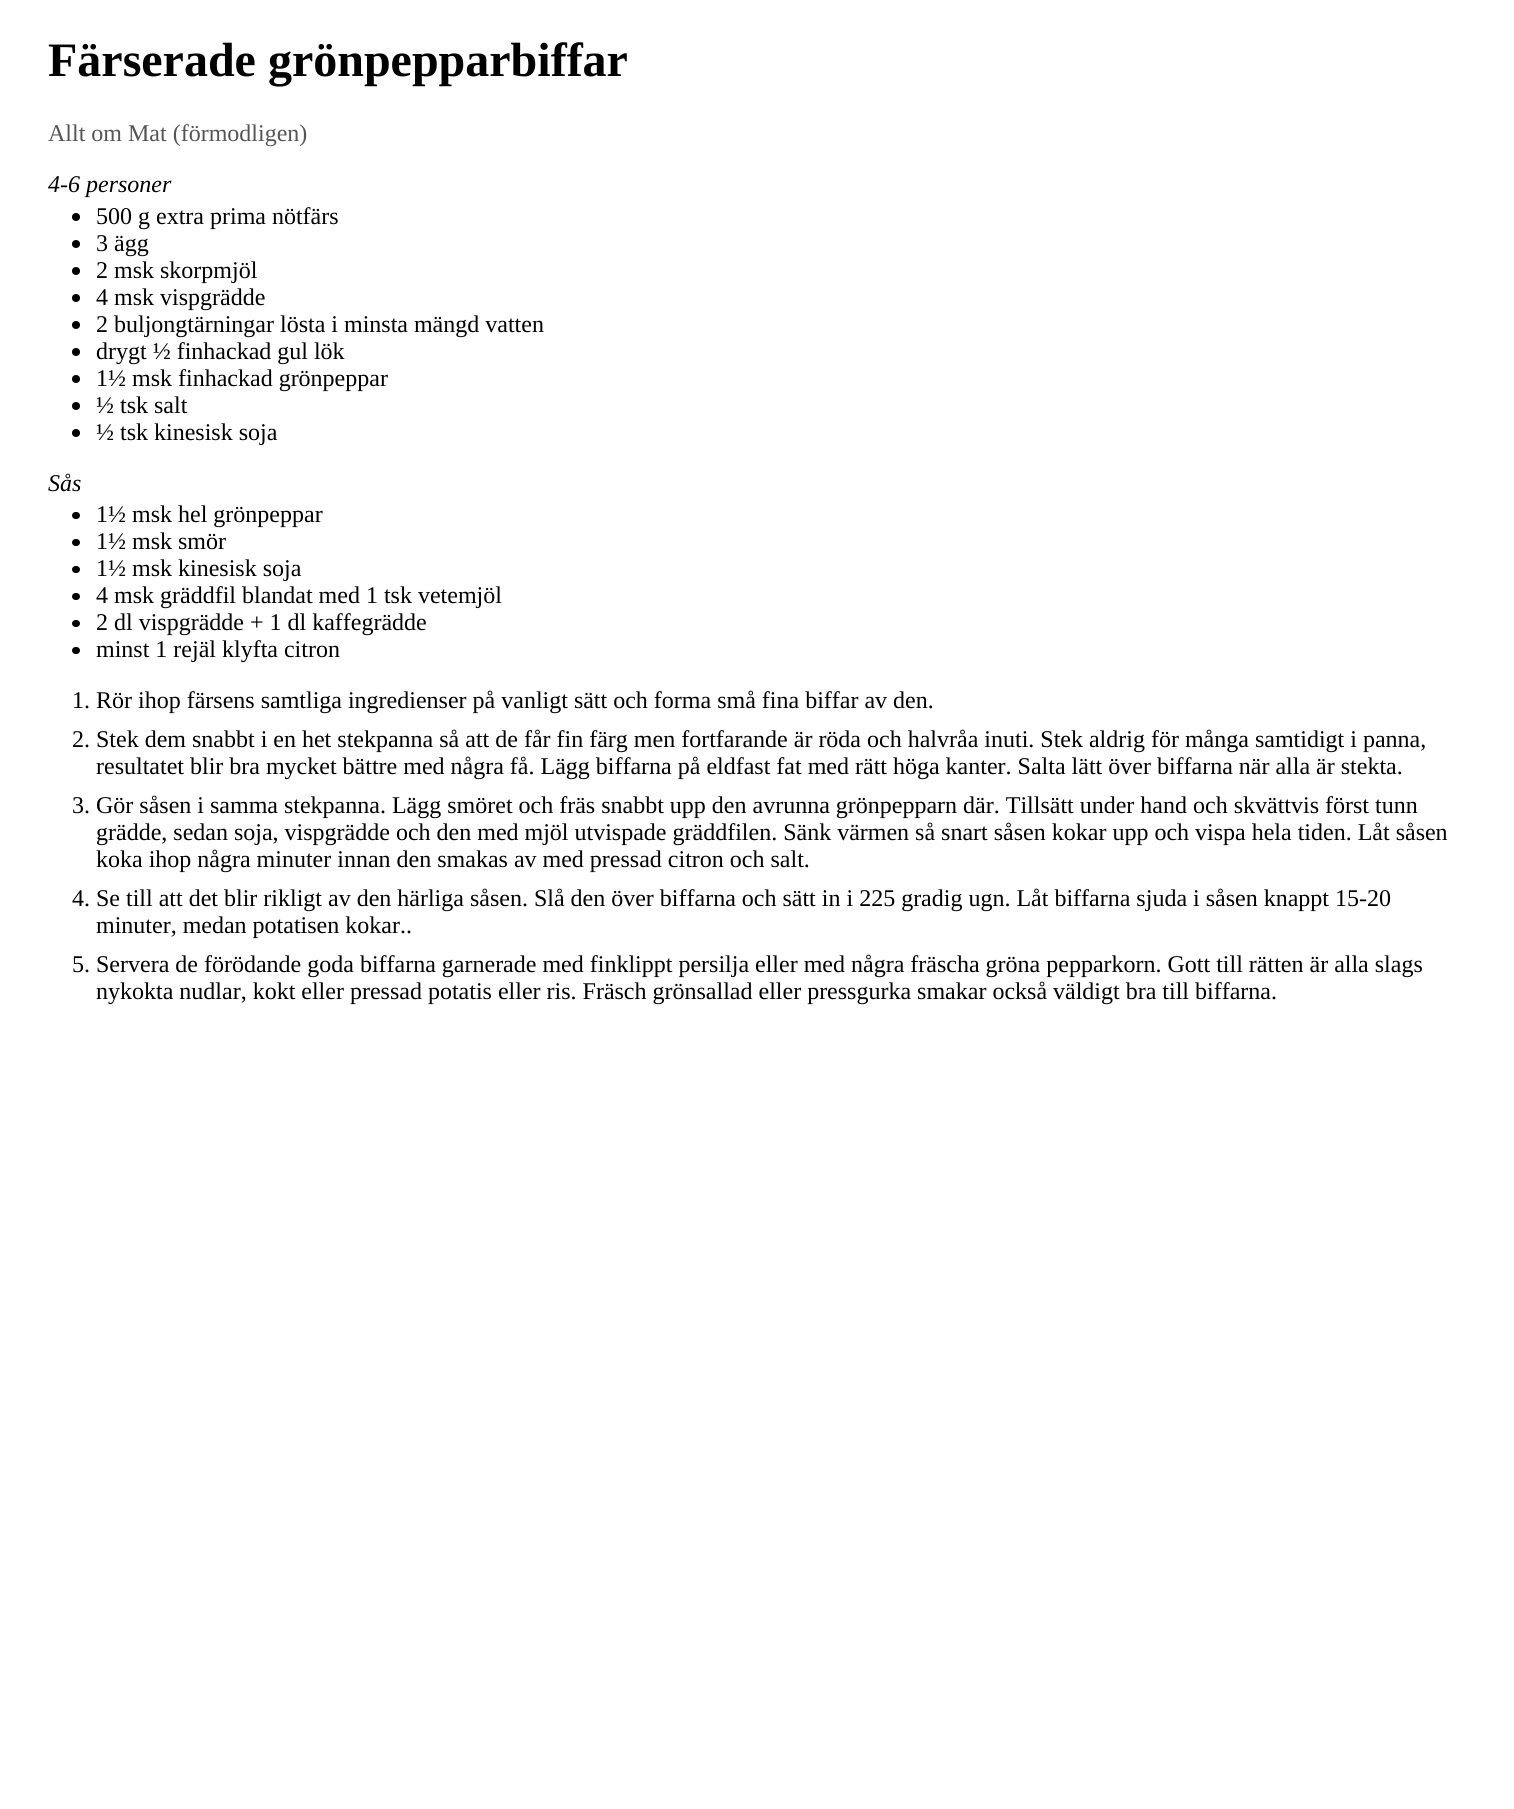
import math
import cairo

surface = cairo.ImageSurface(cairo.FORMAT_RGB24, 1514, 1809)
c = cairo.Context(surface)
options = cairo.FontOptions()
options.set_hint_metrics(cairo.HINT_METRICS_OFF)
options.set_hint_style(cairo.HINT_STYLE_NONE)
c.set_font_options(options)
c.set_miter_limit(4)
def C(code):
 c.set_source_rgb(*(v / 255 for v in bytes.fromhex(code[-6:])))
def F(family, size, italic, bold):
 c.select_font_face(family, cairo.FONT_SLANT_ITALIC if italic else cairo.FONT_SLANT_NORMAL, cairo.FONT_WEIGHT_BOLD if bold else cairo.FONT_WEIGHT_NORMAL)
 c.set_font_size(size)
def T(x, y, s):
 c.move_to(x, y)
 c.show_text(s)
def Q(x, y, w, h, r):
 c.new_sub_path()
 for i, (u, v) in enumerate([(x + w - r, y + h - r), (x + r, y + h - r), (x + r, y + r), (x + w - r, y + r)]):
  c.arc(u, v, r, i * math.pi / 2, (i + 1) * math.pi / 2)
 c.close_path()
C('ffffff')
c.paint()
F('Liberation Serif',48,0,1)
C('000000')
T(48,76,'Färserade grönpepparbiffar')
F('Liberation Serif',24,0,0)
C('555555')
T(48,141,'Allt om Mat (förmodligen)')
F('Liberation Serif',24,1,0)
C('000000')
T(48,192,'4-6 personer')
c.new_path()
c.arc(76,217,4,0,2 * math.pi)
c.fill()
F('Liberation Serif',24,0,0)
T(96,224,'500 g extra prima nötfärs')
c.new_path()
c.arc(76,244,4,0,2 * math.pi)
c.fill()
T(96,251,'3 ägg')
c.new_path()
c.arc(76,271,4,0,2 * math.pi)
c.fill()
T(96,278,'2 msk skorpmjöl')
c.new_path()
c.arc(76,298,4,0,2 * math.pi)
c.fill()
T(96,305,'4 msk vispgrädde')
c.new_path()
c.arc(76,325,4,0,2 * math.pi)
c.fill()
T(96,332,'2 buljongtärningar lösta i minsta mängd vatten')
c.new_path()
c.arc(76,352,4,0,2 * math.pi)
c.fill()
T(96,359,'drygt ½ finhackad gul lök')
c.new_path()
c.arc(76,379,4,0,2 * math.pi)
c.fill()
T(96,386,'1½ msk finhackad grönpeppar')
c.new_path()
c.arc(76,406,4,0,2 * math.pi)
c.fill()
T(96,413,'½ tsk salt')
c.new_path()
c.arc(76,433,4,0,2 * math.pi)
c.fill()
T(96,440,'½ tsk kinesisk soja')
F('Liberation Serif',24,1,0)
T(48,491,'Sås')
Q(72,512,8,7,3.5)
c.fill()
F('Liberation Serif',24,0,0)
T(96,522,'1½ msk hel grönpeppar')
Q(72,539,8,7,3.5)
c.fill()
T(96,549,'1½ msk smör')
Q(72,566,8,7,3.5)
c.fill()
T(96,576,'1½ msk kinesisk soja')
Q(72,593,8,7,3.5)
c.fill()
T(96,603,'4 msk gräddfil blandat med 1 tsk vetemjöl')
Q(72,620,8,7,3.5)
c.fill()
T(96,630,'2 dl vispgrädde + 1 dl kaffegrädde')
Q(72,647,8,7,3.5)
c.fill()
T(96,657,'minst 1 rejäl klyfta citron')
T(72,708,'1. Rör ihop färsens samtliga ingredienser på vanligt sätt och forma små fina biffar av den.')
T(72,747,'2. Stek dem snabbt i en het stekpanna så att de får fin färg men fortfarande är röda och halvråa inuti. Stek aldrig för många samtidigt i panna,')
T(96,774,'resultatet blir bra mycket bättre med några få. Lägg biffarna på eldfast fat med rätt höga kanter. Salta lätt över biffarna när alla är stekta.')
T(72,813,'3. Gör såsen i samma stekpanna. Lägg smöret och fräs snabbt upp den avrunna grönpepparn där. Tillsätt under hand och skvättvis först tunn')
T(96,840,'grädde, sedan soja, vispgrädde och den med mjöl utvispade gräddfilen. Sänk värmen så snart såsen kokar upp och vispa hela tiden. Låt såsen')
T(96,867,'koka ihop några minuter innan den smakas av med pressad citron och salt.')
T(72,906,'4. Se till att det blir rikligt av den härliga såsen. Slå den över biffarna och sätt in i 225 gradig ugn. Låt biffarna sjuda i såsen knappt 15-20')
T(96,933,'minuter, medan potatisen kokar..')
T(72,972,'5. Servera de förödande goda biffarna garnerade med finklippt persilja eller med några fräscha gröna pepparkorn. Gott till rätten är alla slags')
T(96,999,'nykokta nudlar, kokt eller pressad potatis eller ris. Fräsch grönsallad eller pressgurka smakar också väldigt bra till biffarna.')
surface.write_to_png('o.png')
